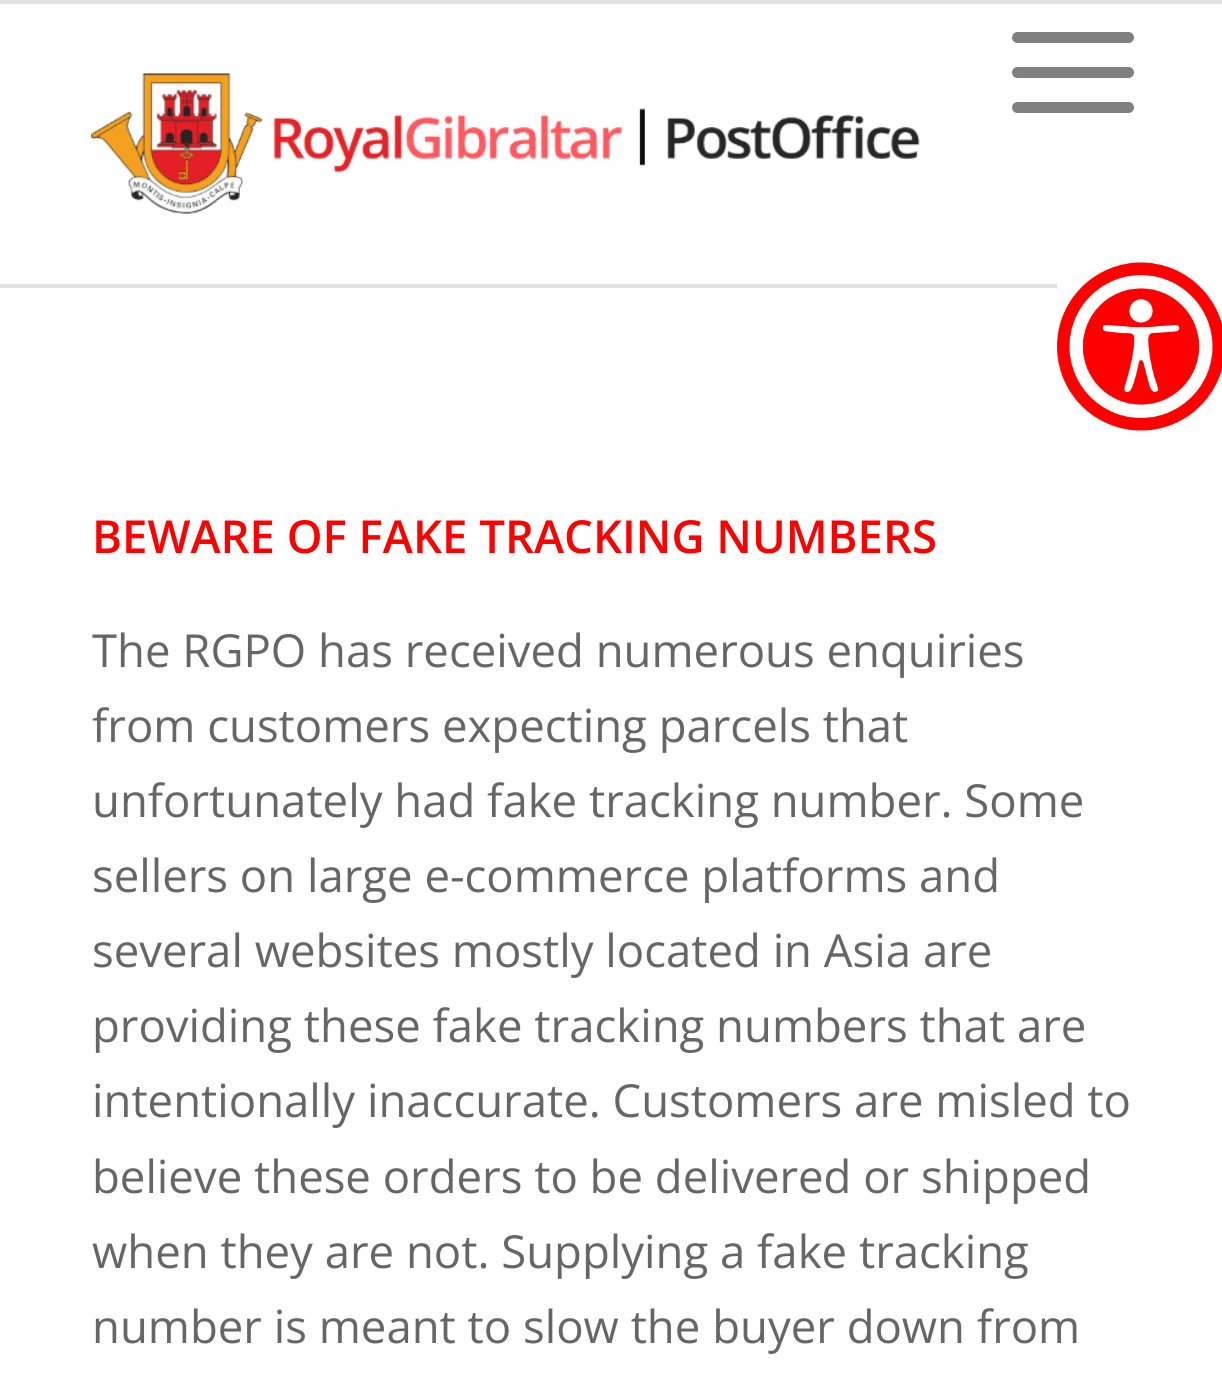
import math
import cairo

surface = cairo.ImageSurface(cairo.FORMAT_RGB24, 1222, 1389)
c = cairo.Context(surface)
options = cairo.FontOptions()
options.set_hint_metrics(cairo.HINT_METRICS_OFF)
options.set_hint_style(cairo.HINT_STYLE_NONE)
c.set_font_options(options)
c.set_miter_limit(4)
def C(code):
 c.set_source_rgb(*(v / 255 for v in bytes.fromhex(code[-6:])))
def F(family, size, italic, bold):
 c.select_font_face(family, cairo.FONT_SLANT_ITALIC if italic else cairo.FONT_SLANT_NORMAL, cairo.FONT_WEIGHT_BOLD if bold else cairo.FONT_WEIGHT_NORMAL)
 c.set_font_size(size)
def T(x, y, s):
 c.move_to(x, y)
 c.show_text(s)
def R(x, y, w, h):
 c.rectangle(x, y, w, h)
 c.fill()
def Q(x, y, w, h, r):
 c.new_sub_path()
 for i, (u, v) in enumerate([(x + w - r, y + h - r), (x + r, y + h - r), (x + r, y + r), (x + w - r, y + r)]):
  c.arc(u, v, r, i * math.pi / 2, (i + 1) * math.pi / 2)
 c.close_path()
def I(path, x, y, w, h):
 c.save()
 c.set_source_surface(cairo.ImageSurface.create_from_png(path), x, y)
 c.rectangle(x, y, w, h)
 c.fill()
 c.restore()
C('ffffff')
c.paint()
I('1.png',1057,262,165,169)
C('e1e1e1')
R(0,0,1222,4)
R(0,284,1057,4)
I('2.png',91,73,829,141)
C('808080')
Q(1012,67,122,11,5.5)
c.fill()
Q(1012,32,122,11,5.5)
c.fill()
Q(1012,102,122,11,5.5)
c.fill()
F('Open Sans SemiBold',45.5,0,0)
C('ff0000')
T(92,553,'BEWARE OF FAKE TRACKING NUMBERS')
F('Open Sans',45.5,0,0)
C('666666')
T(92,667,'The RGPO has received numerous enquiries')
T(92,742,'from customers expecting parcels that')
T(92,817,'unfortunately had fake tracking number. Some')
T(92,892,'sellers on large e-commerce platforms and')
T(92,967,'several websites mostly located in Asia are')
T(92,1042,'providing these fake tracking numbers that are')
T(92,1117,'intentionally inaccurate. Customers are misled to')
T(92,1193,'believe these orders to be delivered or shipped')
T(92,1268,'when they are not. Supplying a fake tracking')
T(92,1343,'number is meant to slow the buyer down from')
surface.write_to_png('o.png')
